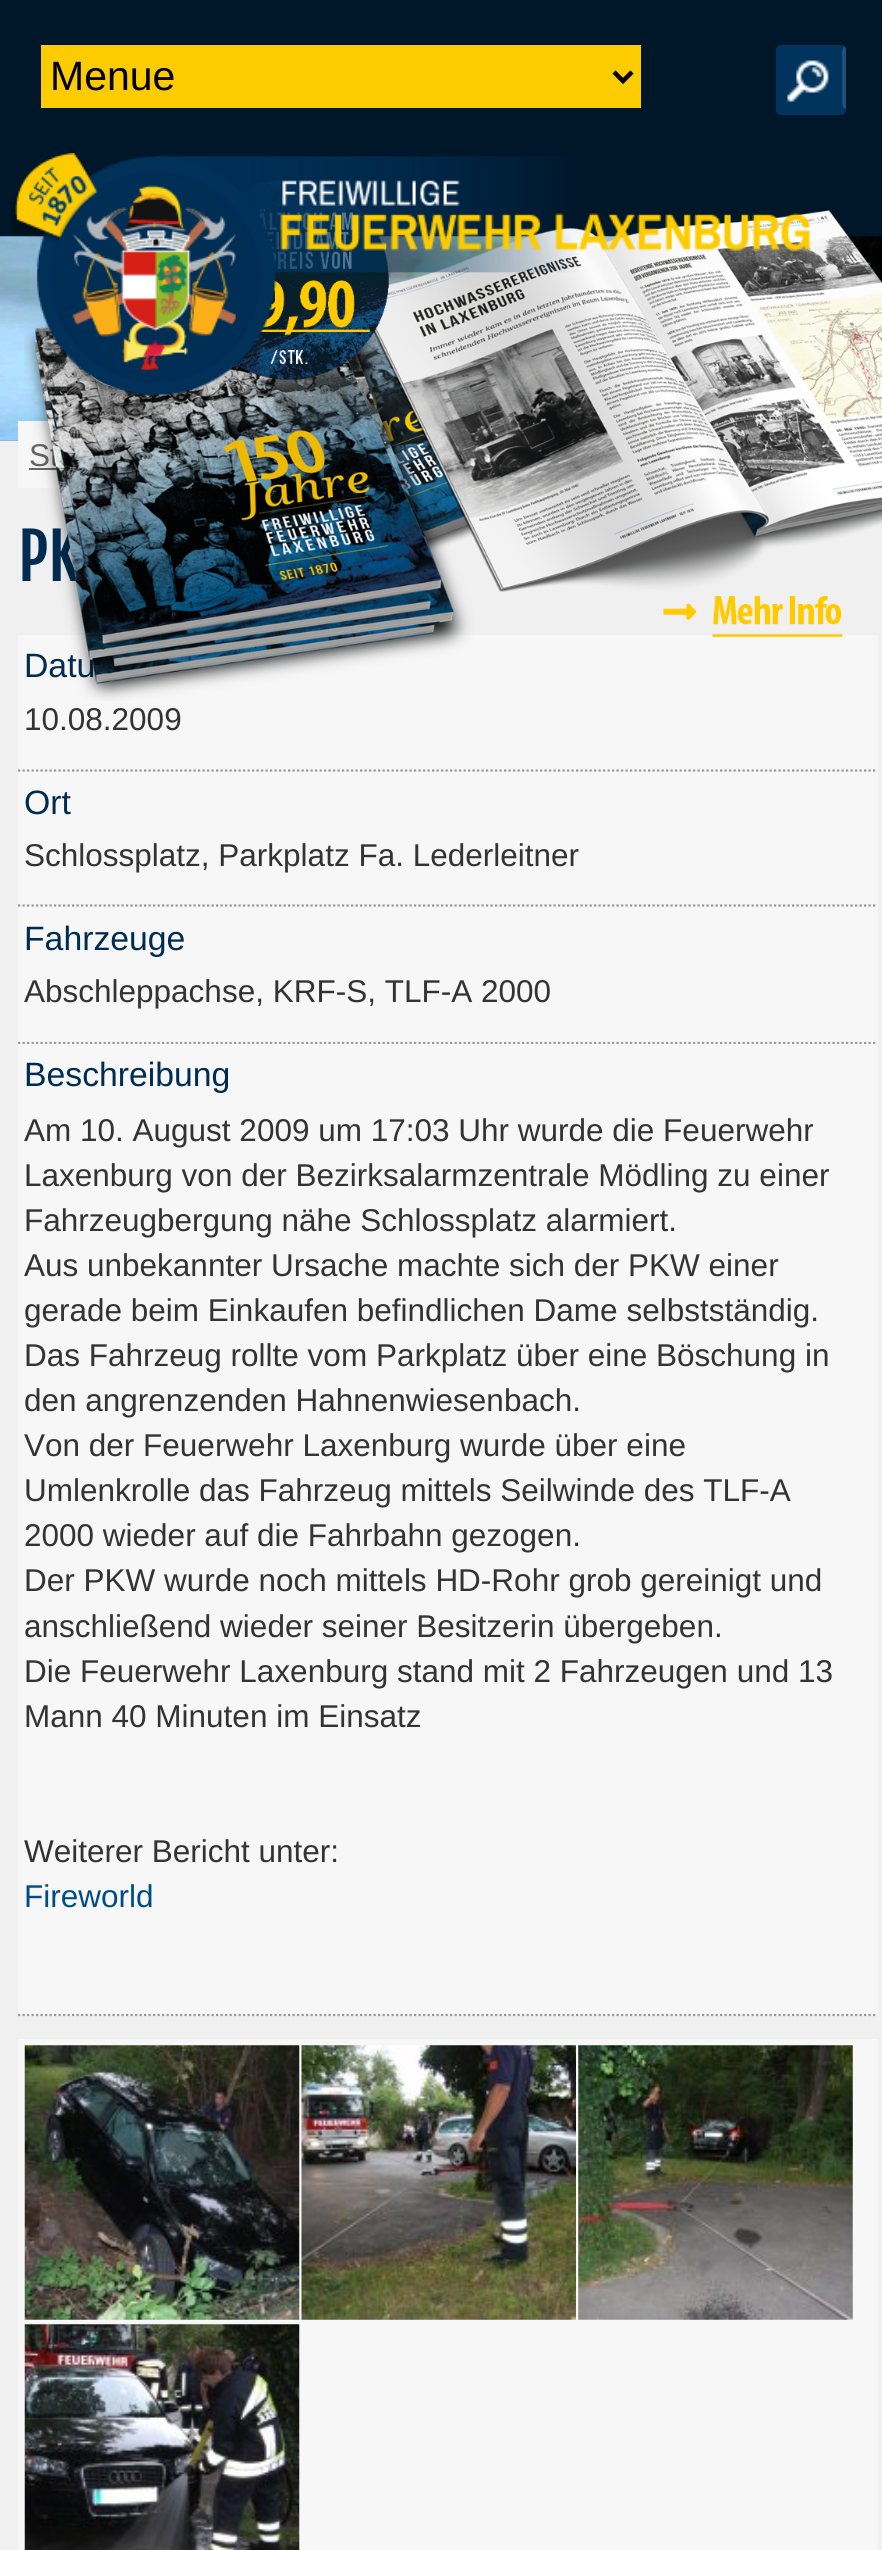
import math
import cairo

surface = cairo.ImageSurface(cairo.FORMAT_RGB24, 882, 2550)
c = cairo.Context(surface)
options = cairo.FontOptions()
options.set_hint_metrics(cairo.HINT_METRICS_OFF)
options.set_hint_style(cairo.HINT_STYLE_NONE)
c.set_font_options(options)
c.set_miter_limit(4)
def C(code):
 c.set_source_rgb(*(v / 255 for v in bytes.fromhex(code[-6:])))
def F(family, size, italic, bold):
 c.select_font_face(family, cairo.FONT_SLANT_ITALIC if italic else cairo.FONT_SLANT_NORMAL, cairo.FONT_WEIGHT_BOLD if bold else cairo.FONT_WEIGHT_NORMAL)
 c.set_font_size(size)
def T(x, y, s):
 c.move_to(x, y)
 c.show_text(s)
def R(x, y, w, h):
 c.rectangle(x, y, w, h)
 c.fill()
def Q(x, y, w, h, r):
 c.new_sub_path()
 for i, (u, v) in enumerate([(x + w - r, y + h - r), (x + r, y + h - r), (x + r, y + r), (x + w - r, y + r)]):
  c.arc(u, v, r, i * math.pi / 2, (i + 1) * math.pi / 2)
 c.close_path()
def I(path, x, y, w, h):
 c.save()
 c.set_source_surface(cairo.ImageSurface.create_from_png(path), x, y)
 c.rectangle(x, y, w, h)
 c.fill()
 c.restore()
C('001629')
c.paint()
C('fccc00')
R(41,45,600,63)
c.new_path()
c.move_to(614,72)
c.line_to(623,81)
c.line_to(632,72)
C('000000')
c.set_line_width(4.5)
c.stroke()
F('Liberation Sans',41,0,0)
T(50,90,'Menue')
C('00345f')
Q(776,45,70,70,5)
c.fill()
I('1.png',787,60,42,42)
c.save()
Q(776,45,70,70,5)
c.clip()
C('1f5079')
c.new_path()
c.move_to(849,45)
c.line_to(846,45)
c.line_to(846,110)
c.line_to(849,110)
c.curve_to(845,110,842,107,842,103)
c.line_to(842,52)
c.curve_to(842,48,845,45,849,45)
c.close_path()
c.fill()
c.restore()
I('3.png',0,236,882,205)
C('f0f0f0')
R(0,441,882,2109)
C('f7f7f7')
R(18,421,43,67)
F('Liberation Sans',31.5,0,0)
C('666666')
T(29,466,'St')
R(29,468,28,2)
F('Fjalla One',63,0,0)
C('002c52')
T(18,581,'PK')
C('f7f7f7')
R(18,635,860,409)
F('Liberation Sans',33.75,0,0)
C('002c52')
T(24,677,'Datu')
I('4.png',24,179,858,522)
I('2.png',10,153,801,243)
c.new_path()
c.move_to(18,770.5)
c.line_to(877.5,770.5)
C('999999')
c.set_line_width(2.2)
c.set_dash([2.25,2.25])
c.stroke()
F('Liberation Sans',31.5,0,0)
C('333333')
T(24,730,'10.08.2009')
c.new_path()
c.move_to(18,905.5)
c.line_to(877.5,905.5)
C('999999')
c.stroke()
F('Liberation Sans',33.75,0,0)
C('002c52')
T(24,814,'Ort')
F('Liberation Sans',31.5,0,0)
C('333333')
T(24,866,'Schlossplatz, Parkplatz Fa. Lederleitner')
c.new_path()
c.move_to(18,1043)
c.line_to(877.5,1043)
C('999999')
c.stroke()
F('Liberation Sans',33.75,0,0)
C('002c52')
T(24,950,'Fahrzeuge')
F('Liberation Sans',31.5,0,0)
C('333333')
T(24,1002,'Abschleppachse, KRF-S, TLF-A 2000')
C('f7f7f7')
R(18,1044,860,972)
c.new_path()
c.move_to(18,2015)
c.line_to(877.5,2015)
C('999999')
c.stroke()
F('Liberation Sans',33.75,0,0)
C('002c52')
T(24,1086,'Beschreibung')
F('Liberation Sans',31.5,0,0)
C('333333')
T(24,1141,'Am 10. August 2009 um 17:03 Uhr wurde die Feuerwehr')
T(24,1186,'Laxenburg von der Bezirksalarmzentrale Mödling zu einer')
T(24,1231,'Fahrzeugbergung nähe Schlossplatz alarmiert.')
T(24,1276,'Aus unbekannter Ursache machte sich der PKW einer')
T(24,1321,'gerade beim Einkaufen befindlichen Dame selbstständig.')
T(24,1366,'Das Fahrzeug rollte vom Parkplatz über eine Böschung in')
T(24,1411,'den angrenzenden Hahnenwiesenbach.')
T(24,1456,'Von der Feuerwehr Laxenburg wurde über eine')
T(24,1501,'Umlenkrolle das Fahrzeug mittels Seilwinde des TLF-A')
T(24,1546,'2000 wieder auf die Fahrbahn gezogen.')
T(24,1591,'Der PKW wurde noch mittels HD-Rohr grob gereinigt und')
T(24,1637,'anschließend wieder seiner Besitzerin übergeben.')
T(24,1682,'Die Feuerwehr Laxenburg stand mit 2 Fahrzeugen und 13')
T(24,1727,'Mann 40 Minuten im Einsatz')
T(24,1862,'Weiterer Bericht unter:')
C('004c87')
T(24,1907,'Fireworld')
C('f7f7f7')
R(18,2039,860,511)
I('5.png',24,2045,276,275)
C('f4f4f4')
R(302,2284,276,36)
I('6.png',301,2045,275,275)
I('7.png',578,2045,275,275)
I('8.png',24,2324,276,226)
surface.write_to_png('o.png')
